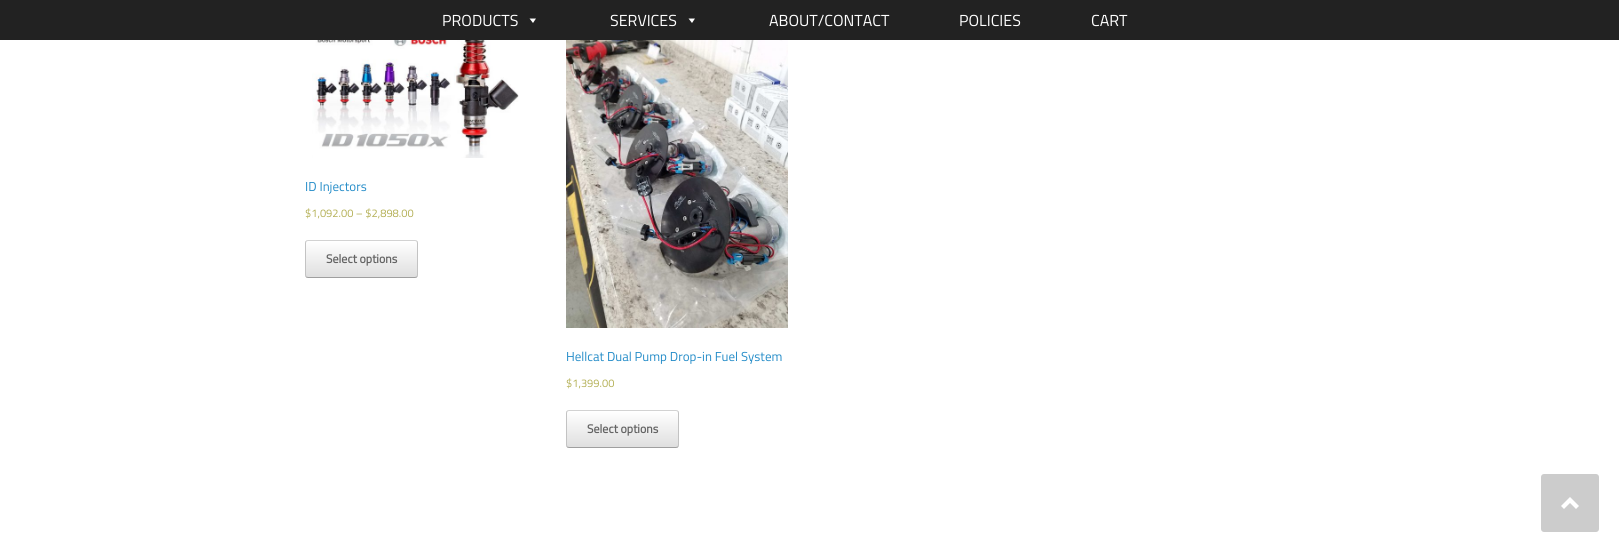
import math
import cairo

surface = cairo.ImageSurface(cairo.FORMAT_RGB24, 1619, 552)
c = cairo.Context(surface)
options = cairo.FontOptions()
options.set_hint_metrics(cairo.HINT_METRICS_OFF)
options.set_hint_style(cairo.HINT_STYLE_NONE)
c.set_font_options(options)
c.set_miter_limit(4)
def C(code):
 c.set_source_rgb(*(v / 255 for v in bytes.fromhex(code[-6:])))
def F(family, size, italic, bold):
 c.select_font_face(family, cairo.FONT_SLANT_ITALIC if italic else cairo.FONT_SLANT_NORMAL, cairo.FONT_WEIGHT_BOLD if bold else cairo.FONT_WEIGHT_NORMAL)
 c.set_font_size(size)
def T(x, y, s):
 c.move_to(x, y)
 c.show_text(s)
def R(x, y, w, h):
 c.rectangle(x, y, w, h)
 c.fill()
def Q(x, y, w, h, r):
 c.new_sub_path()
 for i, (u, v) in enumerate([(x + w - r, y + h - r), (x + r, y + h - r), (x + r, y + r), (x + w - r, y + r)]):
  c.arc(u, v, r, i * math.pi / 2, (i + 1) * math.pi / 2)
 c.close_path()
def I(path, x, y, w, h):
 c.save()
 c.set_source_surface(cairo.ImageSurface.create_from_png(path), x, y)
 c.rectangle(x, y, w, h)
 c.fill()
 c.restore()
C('ffffff')
c.paint()
C('222222')
R(0,0,1619,40)
F('Titillium Web',16,0,0)
C('ffffff')
T(442,26,'PRODUCTS')
c.new_path()
c.move_to(536,18.5)
c.line_to(533,23)
c.line_to(529.5,18.5)
c.close_path()
c.fill()
T(610,26,'SERVICES')
c.new_path()
c.move_to(695,18.5)
c.line_to(692,23)
c.line_to(688.5,18.5)
c.close_path()
c.fill()
T(769,26,'ABOUT/CONTACT')
T(959,26,'POLICIES')
T(1091,26,'CART')
I('1.png',312,40,207,118)
F('Titillium Web',13,0,0)
C('248cc8')
T(305,191,'ID Injectors')
F('Titillium Web',11.1,0,0)
C('b3af54')
T(305,217,'$1,092.00 – $2,898.00')
c.save()
Q(305,240,113,38,3)
c.clip()
gradient = cairo.LinearGradient(306,277,306,241)
gradient.add_color_stop_rgba(0,0.875,0.875,0.875,1)
gradient.add_color_stop_rgba(1,1,1,1,1)
c.set_source(gradient)
R(305,241,113,36)
c.restore()
c.new_path()
c.move_to(306,241)
c.line_to(308,240.5)
c.line_to(415,240.5)
c.line_to(417,241)
C('d2d2d2')
c.set_line_width(1)
c.stroke()
c.new_path()
c.move_to(417,241)
c.curve_to(417,241.5,417.5,242.5,417.5,243)
c.line_to(417.5,275)
c.curve_to(417.5,275.5,417,276.5,417,277)
C('c3c3c3')
c.stroke()
c.new_path()
c.move_to(417,277)
c.line_to(415,277.5)
c.line_to(308,277.5)
c.line_to(306,277)
C('9f9f9f')
c.stroke()
c.new_path()
c.move_to(306,277)
c.curve_to(306,276.5,305.5,275.5,305.5,275)
c.line_to(305.5,243)
c.curve_to(305.5,242.5,306,241.5,306,241)
C('c3c3c3')
c.stroke()
F('Titillium Web',12,0,1)
C('646464')
T(326,263,'Select options')
I('2.png',566,40,222,288)
F('Titillium Web',13,0,0)
C('248cc8')
T(566,361,'Hellcat Dual Pump Drop-in Fuel System')
F('Titillium Web',11.1,0,0)
C('b3af54')
T(566,387,'$1,399.00')
c.save()
Q(566,410,113,38,3)
c.clip()
gradient = cairo.LinearGradient(567,447,567,411)
gradient.add_color_stop_rgba(0,0.875,0.875,0.875,1)
gradient.add_color_stop_rgba(1,1,1,1,1)
c.set_source(gradient)
R(566,411,113,36)
c.restore()
c.new_path()
c.move_to(567,411)
c.line_to(569,410.5)
c.line_to(676,410.5)
c.line_to(678,411)
C('d2d2d2')
c.stroke()
c.new_path()
c.move_to(678,411)
c.curve_to(678,411.5,678.5,412.5,678.5,413)
c.line_to(678.5,445)
c.curve_to(678.5,445.5,678,446.5,678,447)
C('c3c3c3')
c.stroke()
c.new_path()
c.move_to(678,447)
c.line_to(676,447.5)
c.line_to(569,447.5)
c.line_to(567,447)
C('9f9f9f')
c.stroke()
c.new_path()
c.move_to(567,447)
c.curve_to(567,446.5,566.5,445.5,566.5,445)
c.line_to(566.5,413)
c.curve_to(566.5,412.5,567,411.5,567,411)
C('c3c3c3')
c.stroke()
F('Titillium Web',12,0,1)
C('646464')
T(587,433,'Select options')
C('cccccc')
Q(1541,474,58,58,3)
c.fill()
C('ffffff')
c.new_path()
c.move_to(1579,506)
c.line_to(1570,497)
c.line_to(1561,506)
c.line_to(1564,509)
c.line_to(1570,503)
c.line_to(1576,509)
c.close_path()
c.fill()
surface.write_to_png('o.png')
